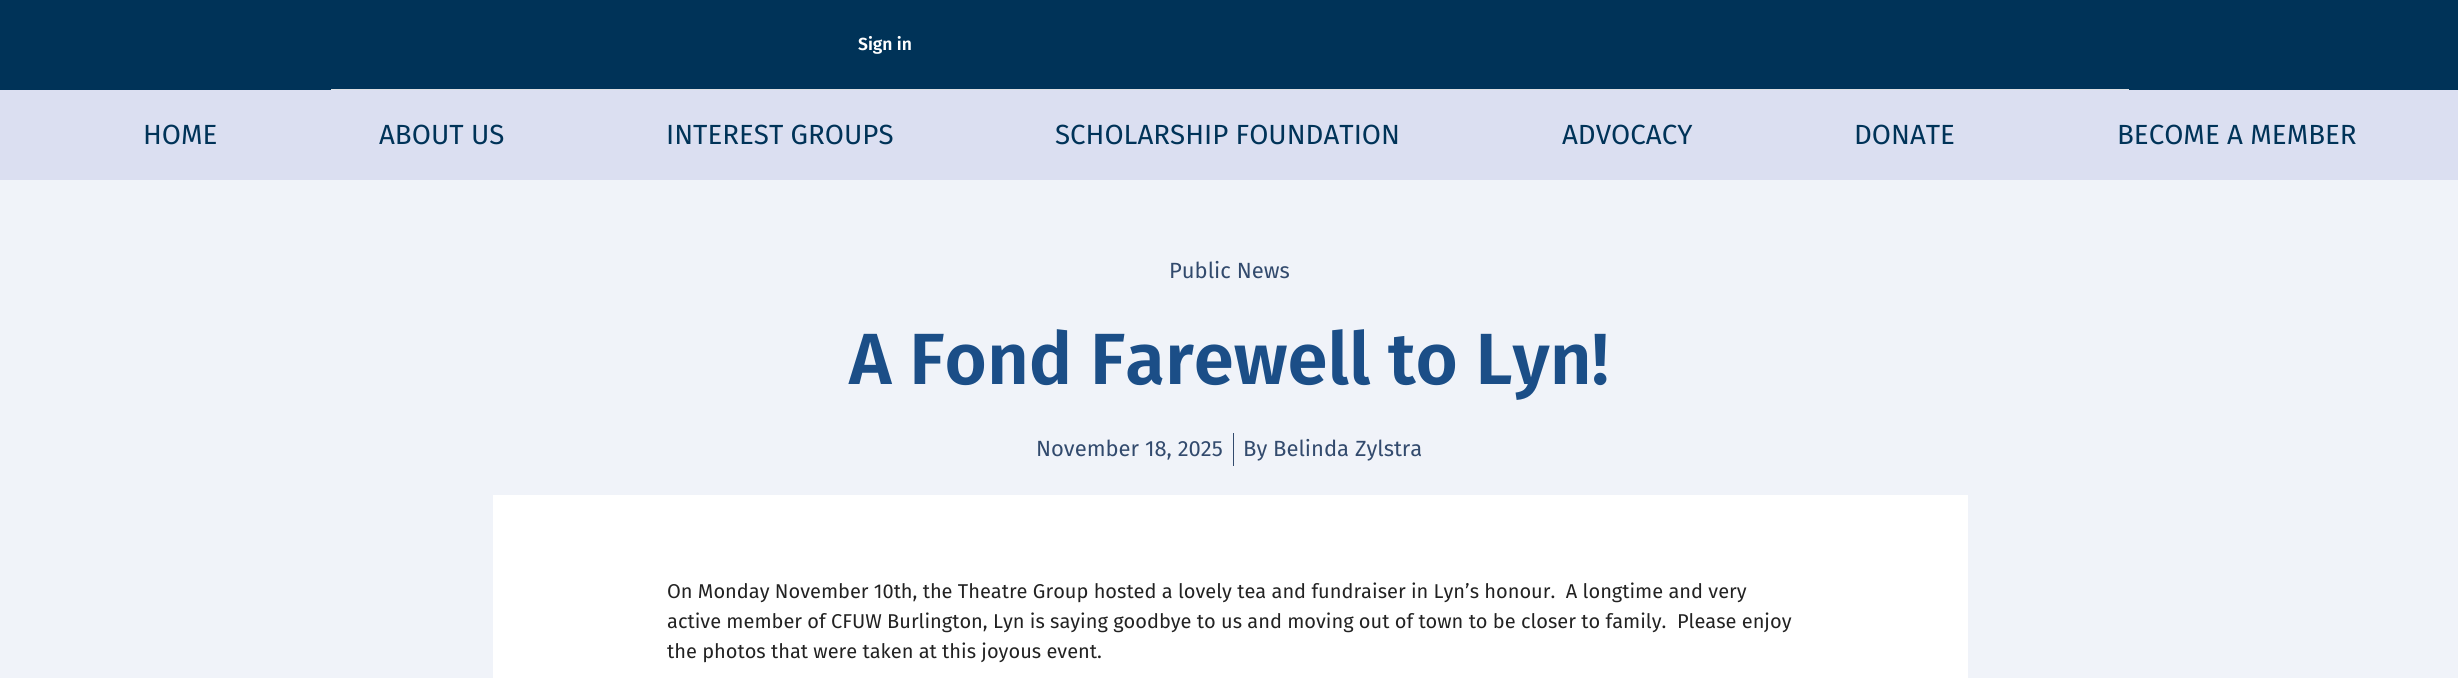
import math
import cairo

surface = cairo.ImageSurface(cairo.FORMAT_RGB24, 2458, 678)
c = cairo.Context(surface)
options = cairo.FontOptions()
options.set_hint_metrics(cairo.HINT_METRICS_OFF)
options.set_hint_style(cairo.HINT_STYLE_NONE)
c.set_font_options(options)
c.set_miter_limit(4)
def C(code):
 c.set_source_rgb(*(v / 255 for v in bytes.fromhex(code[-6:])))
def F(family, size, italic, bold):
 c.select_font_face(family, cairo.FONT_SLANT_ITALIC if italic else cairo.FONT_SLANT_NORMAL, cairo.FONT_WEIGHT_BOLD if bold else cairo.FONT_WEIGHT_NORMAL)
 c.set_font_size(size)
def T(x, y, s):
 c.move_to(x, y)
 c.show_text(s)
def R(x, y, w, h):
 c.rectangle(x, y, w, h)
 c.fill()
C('f0f3f9')
c.paint()
C('003358')
R(0,0,2458,90)
C('dcdfe3')
R(331,89,1798,1)
F('Fira Sans SemiBold',17.5,0,0)
C('ffffff')
T(858,50,'Sign in')
C('dbdff1')
R(0,90,2458,90)
F('Fira Sans',27.7,0,0)
C('003358')
T(143,144,'HOME')
T(379,144,'ABOUT US')
T(666,144,'INTEREST GROUPS')
T(1055,144,'SCHOLARSHIP FOUNDATION')
T(1562,144,'ADVOCACY')
T(1854,144,'DONATE')
T(2117,144,'BECOME A MEMBER')
F('Fira Sans',22,0,0)
C('324a6d')
T(1169,278,'Public News')
F('Fira Sans SemiBold',72.5,0,0)
C('1b4e87')
T(849,384,'A Fond Farewell to Lyn!')
F('Fira Sans',22,0,0)
C('324a6d')
T(1036,456,'November 18, 2025')
R(1233,433,1,33)
T(1243,456,'By Belinda Zylstra')
C('ffffff')
R(493,495,1475,183)
F('Fira Sans',20,0,0)
C('222222')
T(667,598,'On Monday November 10th, the Theatre Group hosted a lovely tea and fundraiser in Lyn’s honour.  A longtime and very')
T(667,628,'active member of CFUW Burlington, Lyn is saying goodbye to us and moving out of town to be closer to family.  Please enjoy')
T(667,658,'the photos that were taken at this joyous event.')
surface.write_to_png('o.png')
